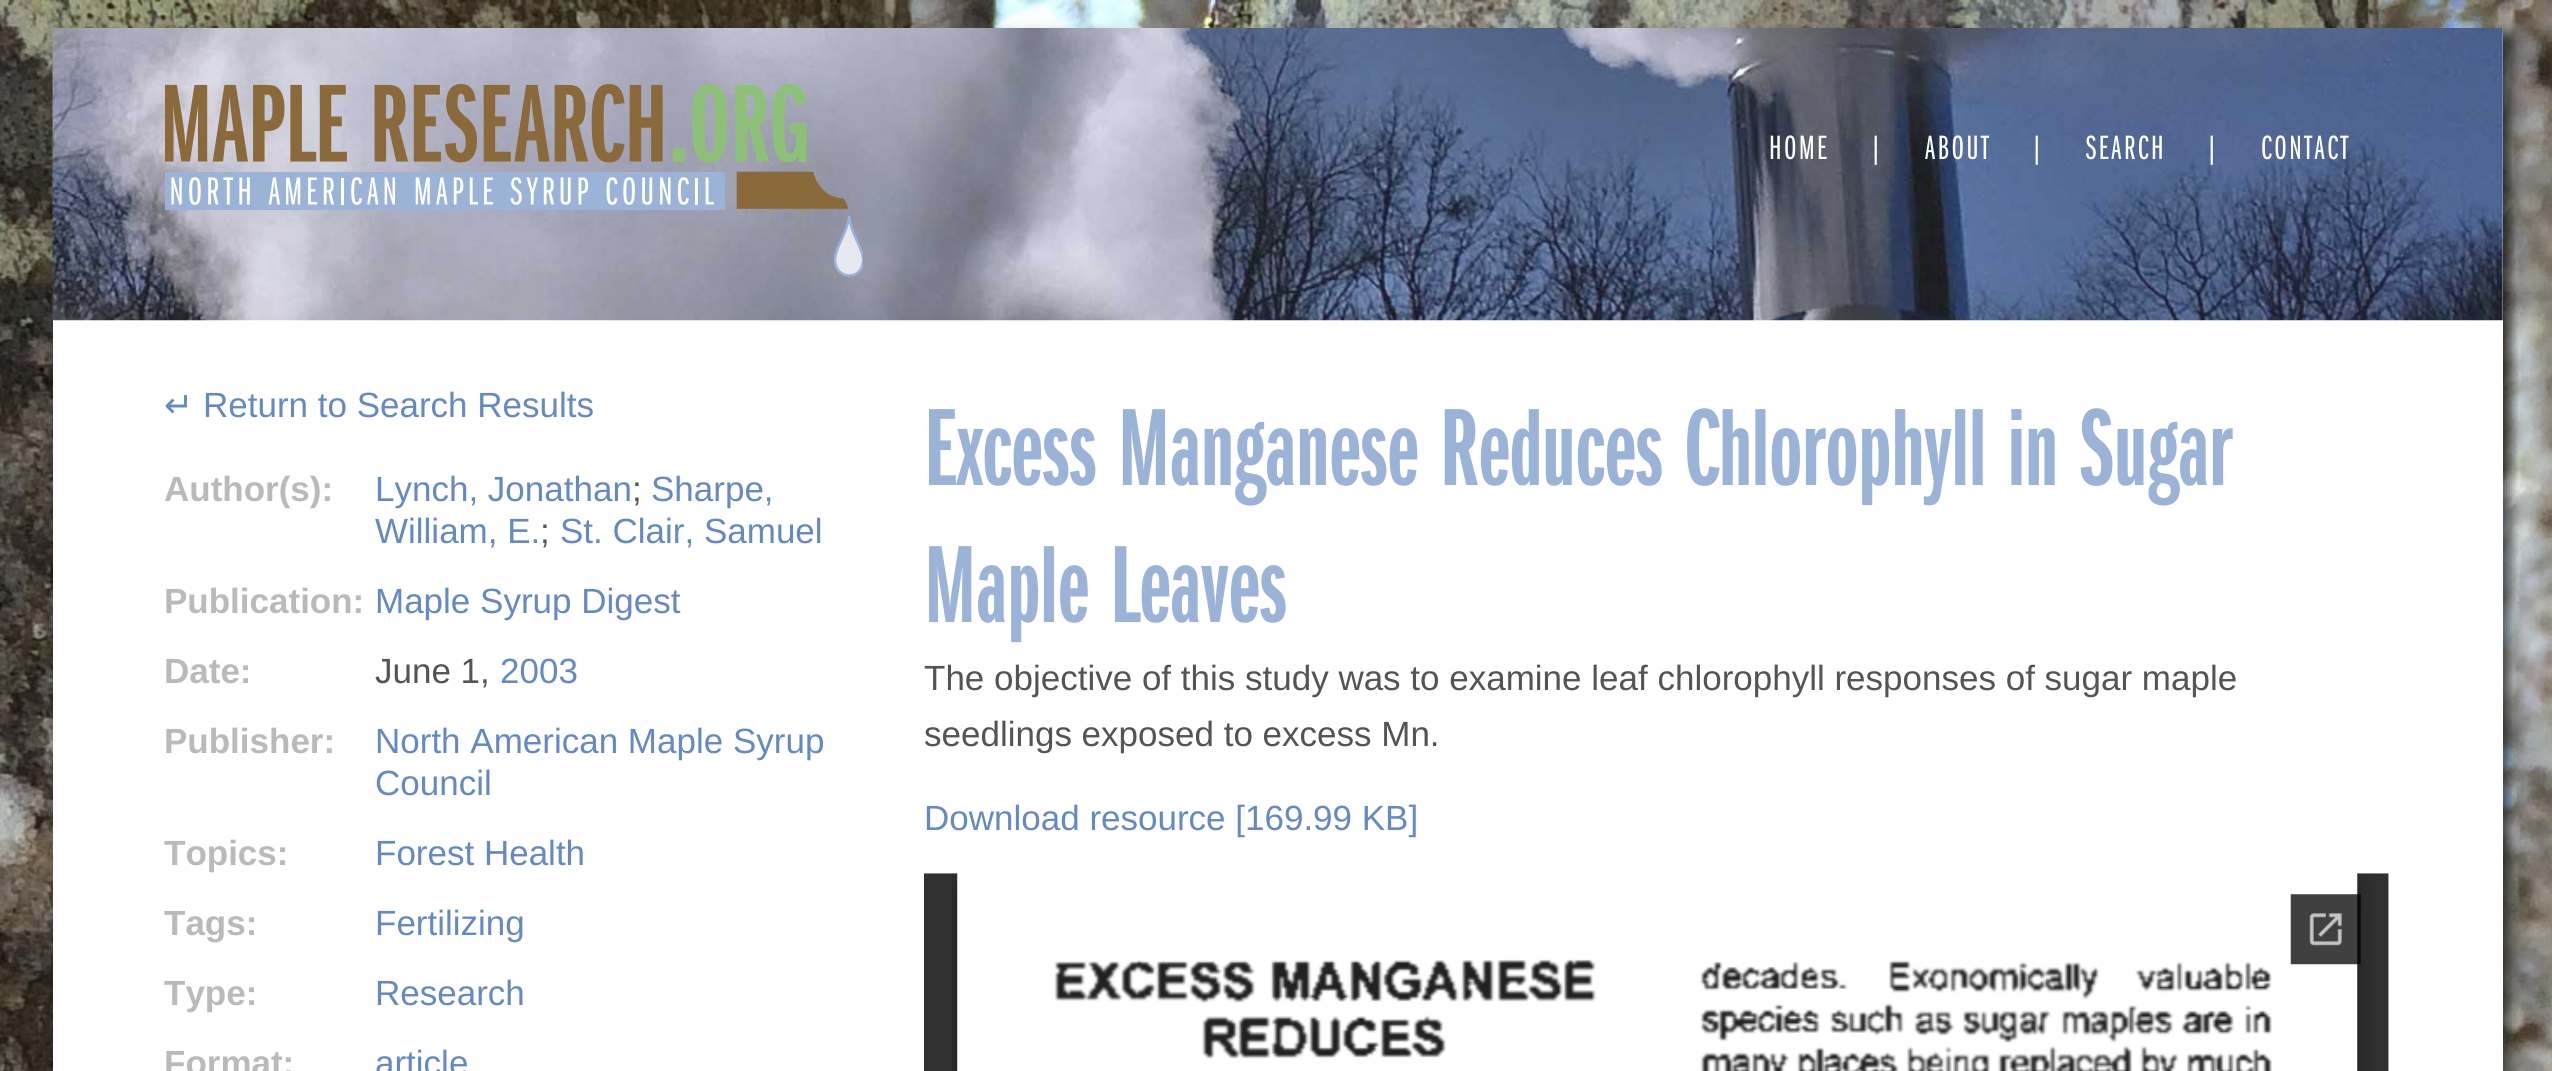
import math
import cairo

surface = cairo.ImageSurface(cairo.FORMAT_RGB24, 2552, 1071)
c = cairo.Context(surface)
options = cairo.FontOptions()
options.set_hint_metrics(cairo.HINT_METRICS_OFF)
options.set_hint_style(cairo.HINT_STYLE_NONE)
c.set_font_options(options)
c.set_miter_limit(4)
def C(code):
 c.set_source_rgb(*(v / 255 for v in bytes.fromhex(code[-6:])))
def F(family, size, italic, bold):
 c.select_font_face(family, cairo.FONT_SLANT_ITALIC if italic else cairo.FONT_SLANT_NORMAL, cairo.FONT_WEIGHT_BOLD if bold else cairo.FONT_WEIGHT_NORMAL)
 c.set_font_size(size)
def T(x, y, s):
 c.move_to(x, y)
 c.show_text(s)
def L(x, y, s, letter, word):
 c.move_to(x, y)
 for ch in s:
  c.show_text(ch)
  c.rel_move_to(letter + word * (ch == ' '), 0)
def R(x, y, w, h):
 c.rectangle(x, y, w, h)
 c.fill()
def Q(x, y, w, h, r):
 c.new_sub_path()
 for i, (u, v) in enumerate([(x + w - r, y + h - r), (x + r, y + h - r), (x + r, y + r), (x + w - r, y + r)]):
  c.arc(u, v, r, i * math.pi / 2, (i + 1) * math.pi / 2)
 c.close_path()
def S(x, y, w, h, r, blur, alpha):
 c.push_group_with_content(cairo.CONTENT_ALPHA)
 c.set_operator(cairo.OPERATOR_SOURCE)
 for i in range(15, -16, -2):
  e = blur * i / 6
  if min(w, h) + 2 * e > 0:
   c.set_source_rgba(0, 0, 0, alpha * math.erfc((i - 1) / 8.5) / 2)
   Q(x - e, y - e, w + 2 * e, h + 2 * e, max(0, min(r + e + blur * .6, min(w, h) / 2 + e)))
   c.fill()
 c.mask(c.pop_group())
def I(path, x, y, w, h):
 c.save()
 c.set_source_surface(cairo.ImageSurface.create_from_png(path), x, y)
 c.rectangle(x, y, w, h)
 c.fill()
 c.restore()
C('ffffff')
c.paint()
I('1.png',0,0,2552,1071)
C('000000')
S(61,37,2450,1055,0,7,.65)
C('ffffff')
R(53,320,2450,751)
C('9cb3d8')
R(2502,28,1,292)
I('2.png',52,28,2451,293)
I('3.png',165,84,698,193)
F('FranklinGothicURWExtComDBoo',35,0,0)
C('ffffff')
L(1769,159,'HOME',2.5,0)
L(1867,159,'|',2.5,0)
L(1925,159,'ABOUT',2.5,0)
L(2028,159,'|',2.5,0)
L(2086,159,'SEARCH',2.5,0)
L(2203,159,'|',2.5,0)
L(2261,159,'CONTACT',2.5,0)
F('DejaVu Sans',35,0,0)
C('6589c2')
T(164,417,'↵')
F('Liberation Sans',35,0,0)
T(203,417,'Return to Search Results')
F('Liberation Sans',35,0,1)
C('bababa')
T(164,501,'Author(s):')
F('Liberation Sans',35,0,0)
C('6589c2')
T(375,501,'Lynch, Jonathan')
C('545454')
T(632,501,';')
C('6589c2')
T(651,501,'Sharpe,')
T(375,543,'William, E.')
C('545454')
T(540,543,';')
C('6589c2')
T(560,543,'St. Clair, Samuel')
F('Liberation Sans',35,0,1)
C('bababa')
T(164,613,'Publication:')
F('Liberation Sans',35,0,0)
C('6589c2')
T(375,613,'Maple Syrup Digest')
F('Liberation Sans',35,0,1)
C('bababa')
T(164,683,'Date:')
F('Liberation Sans',35,0,0)
C('545454')
T(375,683,'June 1,')
C('6589c2')
T(500,683,'2003')
F('Liberation Sans',35,0,1)
C('bababa')
T(164,753,'Publisher:')
F('Liberation Sans',35,0,0)
C('6589c2')
T(375,753,'North American Maple Syrup')
T(375,795,'Council')
F('Liberation Sans',35,0,1)
C('bababa')
T(164,865,'Topics:')
F('Liberation Sans',35,0,0)
C('6589c2')
T(375,865,'Forest Health')
F('Liberation Sans',35,0,1)
C('bababa')
T(164,935,'Tags:')
F('Liberation Sans',35,0,0)
C('6589c2')
T(375,935,'Fertilizing')
F('Liberation Sans',35,0,1)
C('bababa')
T(164,1005,'Type:')
F('Liberation Sans',35,0,0)
C('6589c2')
T(375,1005,'Research')
F('Liberation Sans',35,0,1)
C('bababa')
T(164,1075,'Format:')
F('Liberation Sans',35,0,0)
C('6589c2')
T(375,1075,'article')
F('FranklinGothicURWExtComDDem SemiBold',113.75,0,0)
C('9cb3d8')
T(924,485,'Excess Manganese Reduces Chlorophyll in Sugar')
T(924,622,'Maple Leaves')
F('Liberation Sans',35,0,0)
C('545454')
T(924,690,'The objective of this study was to examine leaf chlorophyll responses of sugar maple')
T(924,746,'seedlings exposed to excess Mn.')
C('6589c2')
T(924,830,'Download resource [169.99 KB]')
I('4.png',924,873,1465,198)
surface.write_to_png('o.png')
